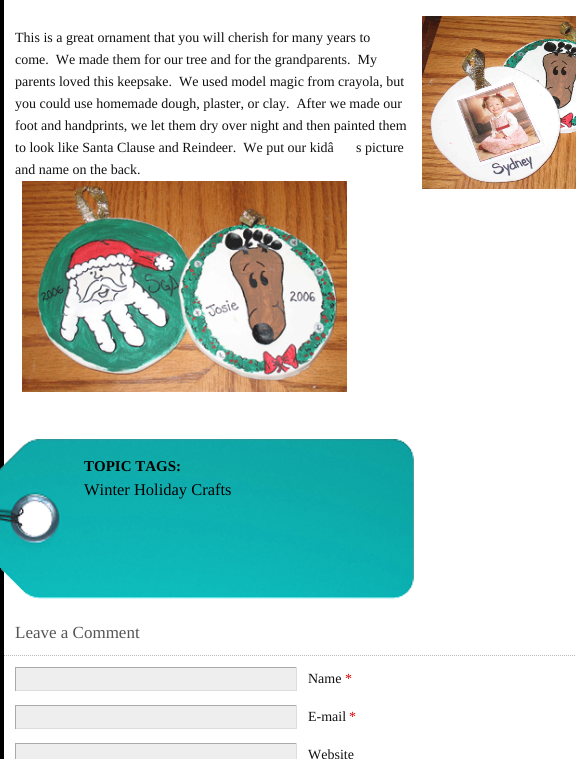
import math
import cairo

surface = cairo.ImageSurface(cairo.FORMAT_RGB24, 576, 759)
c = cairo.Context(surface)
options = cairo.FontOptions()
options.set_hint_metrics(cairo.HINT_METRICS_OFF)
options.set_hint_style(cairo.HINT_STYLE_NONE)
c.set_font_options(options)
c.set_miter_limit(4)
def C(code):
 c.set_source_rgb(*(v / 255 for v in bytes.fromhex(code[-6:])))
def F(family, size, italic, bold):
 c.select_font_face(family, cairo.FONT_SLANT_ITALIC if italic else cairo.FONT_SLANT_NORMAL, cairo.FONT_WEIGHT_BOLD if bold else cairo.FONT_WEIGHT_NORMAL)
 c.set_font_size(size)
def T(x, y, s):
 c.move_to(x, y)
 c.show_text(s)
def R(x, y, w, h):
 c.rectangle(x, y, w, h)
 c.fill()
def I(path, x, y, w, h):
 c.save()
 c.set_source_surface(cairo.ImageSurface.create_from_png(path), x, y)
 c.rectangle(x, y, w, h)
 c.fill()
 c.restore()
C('ffffff')
c.paint()
C('000000')
R(0,0,4,759)
F('Liberation Serif',14,0,0)
C('111111')
T(15,42,'This is a great ornament that you will cherish for many years to')
T(15,64,'come.  We made them for our tree and for the grandparents.  My')
T(15,86,'parents loved this keepsake.  We used model magic from crayola, but')
T(15,108,'you could use homemade dough, plaster, or clay.  After we made our')
T(15,130,'foot and handprints, we let them dry over night and then painted them')
T(15,152,'to look like Santa Clause and Reindeer.  We put our kidâ')
T(356,152,'s picture')
T(15,174,'and name on the back.')
I('1.png',22,181,325,211)
I('2.png',422,16,154,173)
I('3.png',0,439,414,160)
F('Liberation Serif',15,0,1)
C('000000')
T(84,471,'TOPIC TAGS:')
F('Liberation Serif',16.5,0,0)
T(84,495,'Winter Holiday Crafts')
F('Liberation Serif',17,0,0)
C('555555')
T(15,638,'Leave a Comment')
c.new_path()
c.move_to(4,655.5)
c.line_to(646,655.5)
C('bbbbbb')
c.set_line_width(1)
c.set_dash([1,1])
c.stroke()
C('eeeeee')
R(16,668,280,22)
C('aaaaaa')
R(15,667,282,1)
C('dddddd')
R(296,667,1,24)
R(15,690,282,1)
C('aaaaaa')
R(15,667,1,24)
F('Liberation Serif',14,0,0)
C('111111')
T(308,683,'Name')
C('dd0000')
T(345,683,'*')
C('eeeeee')
R(16,706,280,22)
C('aaaaaa')
R(15,705,282,1)
C('dddddd')
R(296,705,1,24)
R(15,728,282,1)
C('aaaaaa')
R(15,705,1,24)
C('111111')
T(308,721,'E-mail')
C('dd0000')
T(349,721,'*')
C('eeeeee')
R(16,744,280,15)
C('aaaaaa')
R(15,743,282,1)
C('dddddd')
R(296,743,1,16)
C('aaaaaa')
R(15,743,1,16)
C('111111')
T(308,759,'Website')
surface.write_to_png('o.png')
